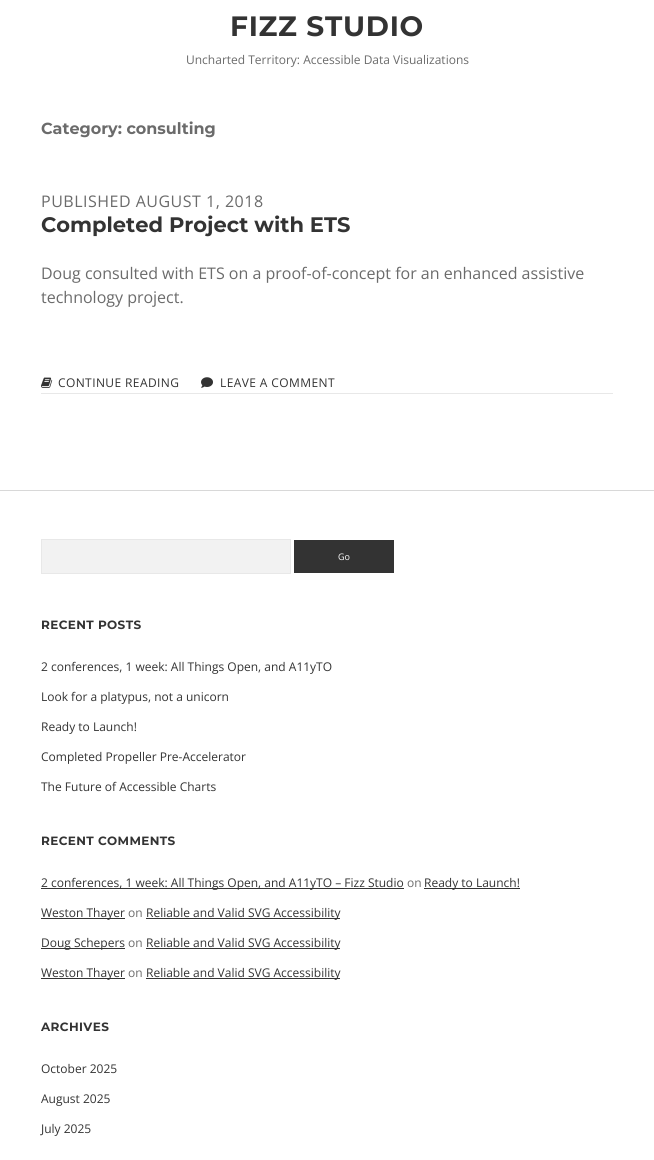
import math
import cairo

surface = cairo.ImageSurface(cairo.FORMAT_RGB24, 654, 1160)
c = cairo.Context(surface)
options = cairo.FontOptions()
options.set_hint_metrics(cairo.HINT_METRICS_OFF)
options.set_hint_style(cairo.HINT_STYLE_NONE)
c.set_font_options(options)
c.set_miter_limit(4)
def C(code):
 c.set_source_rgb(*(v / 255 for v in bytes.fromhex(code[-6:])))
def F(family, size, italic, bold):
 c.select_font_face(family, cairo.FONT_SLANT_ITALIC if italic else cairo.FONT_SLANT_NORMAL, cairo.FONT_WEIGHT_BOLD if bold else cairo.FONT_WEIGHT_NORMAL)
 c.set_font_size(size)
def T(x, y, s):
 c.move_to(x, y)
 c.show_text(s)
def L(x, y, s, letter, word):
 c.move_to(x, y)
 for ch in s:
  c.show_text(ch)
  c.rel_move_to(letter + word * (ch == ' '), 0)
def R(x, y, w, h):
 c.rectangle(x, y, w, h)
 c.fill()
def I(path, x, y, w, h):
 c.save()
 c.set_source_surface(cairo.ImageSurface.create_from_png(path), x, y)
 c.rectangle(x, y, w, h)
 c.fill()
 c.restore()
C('ffffff')
c.paint()
F('Montserrat',28,0,1)
C('333333')
L(230,36,'FIZZ STUDIO',.75,0)
F('Open Sans',12,0,0)
C('6b6b6b')
T(186,64,'Uncharted Territory: Accessible Data Visualizations')
F('Montserrat',16,0,1)
T(41,134,'Category: consulting')
F('Open Sans',16,0,0)
L(41,207,'PUBLISHED AUGUST 1, 2018',.5,0)
F('Montserrat',21,0,1)
C('333333')
T(41,232,'Completed Project with ETS')
C('e8e8e8')
R(41,393,572,1)
F('Open Sans',16,0,0)
C('6b6b6b')
T(41,279,'Doug consulted with ETS on a proof-of-concept for an enhanced assistive')
T(41,303,'technology project.')
I('1.png',41,377,12,11)
F('Open Sans',12,0,0)
C('333333')
L(58,387,'CONTINUE READING',.4,0)
I('2.png',201,377,12,11)
L(220,387,'LEAVE A COMMENT',.4,0)
C('d8d8d8')
R(0,490,654,1)
C('f2f2f2')
c.rectangle(41.5,539.5,249,34)
c.fill_preserve()
C('e8e8e8')
c.set_line_width(1)
c.stroke()
C('333333')
R(294,540,100,33)
F('Open Sans',9,0,0)
C('ffffff')
T(338,560,'Go')
F('Montserrat',12,0,1)
C('333333')
L(41,629,'RECENT POSTS',.4,0)
F('Open Sans',12,0,0)
T(41,671,'2 conferences, 1 week: All Things Open, and A11yTO')
T(41,701,'Look for a platypus, not a unicorn')
T(41,731,'Ready to Launch!')
T(41,761,'Completed Propeller Pre-Accelerator')
T(41,791,'The Future of Accessible Charts')
F('Montserrat',12,0,1)
L(41,845,'RECENT COMMENTS',.4,0)
R(41,888,363,1)
F('Open Sans',12,0,0)
T(41,887,'2 conferences, 1 week: All Things Open, and A11yTO – Fizz Studio')
C('6b6b6b')
T(407,887,'on')
C('333333')
R(424,888,96,1)
T(424,887,'Ready to Launch!')
R(41,918,84,1)
T(41,917,'Weston Thayer')
C('6b6b6b')
T(128,917,'on')
C('333333')
R(146,918,194,1)
T(146,917,'Reliable and Valid SVG Accessibility')
R(41,948,84,1)
T(41,947,'Doug Schepers')
C('6b6b6b')
T(128,947,'on')
C('333333')
R(146,948,194,1)
T(146,947,'Reliable and Valid SVG Accessibility')
R(41,978,84,1)
T(41,977,'Weston Thayer')
C('6b6b6b')
T(128,977,'on')
C('333333')
R(146,978,194,1)
T(146,977,'Reliable and Valid SVG Accessibility')
F('Montserrat',12,0,1)
L(41,1031,'ARCHIVES',.4,0)
F('Open Sans',12,0,0)
T(41,1073,'October 2025')
T(41,1103,'August 2025')
T(41,1133,'July 2025')
surface.write_to_png('o.png')
